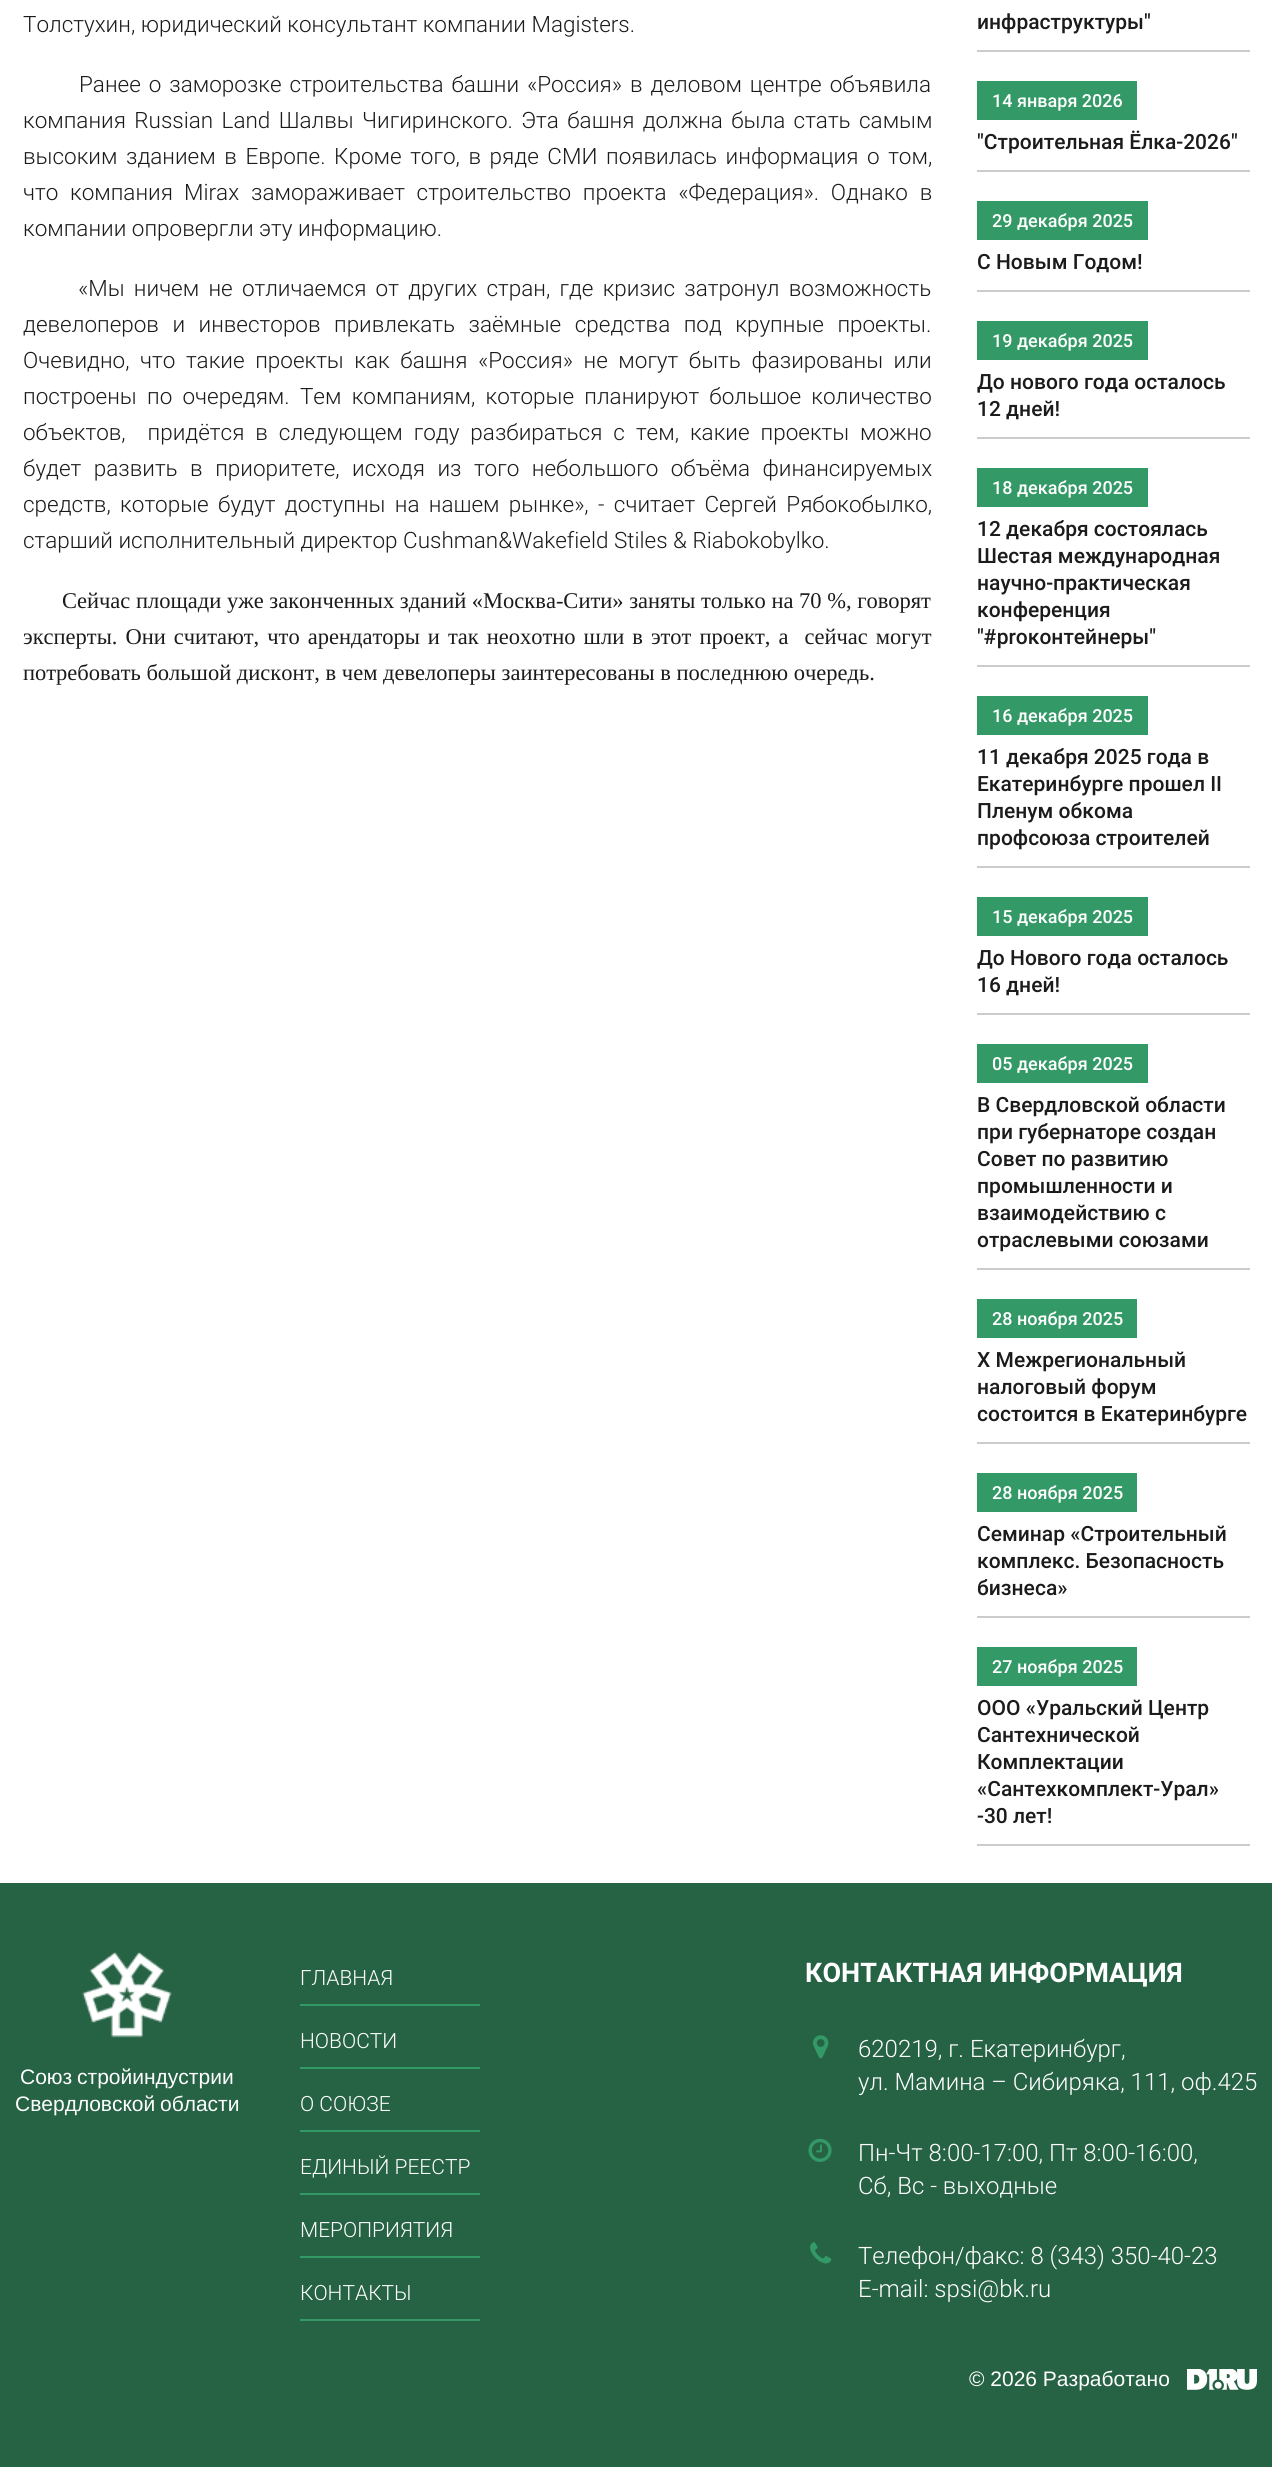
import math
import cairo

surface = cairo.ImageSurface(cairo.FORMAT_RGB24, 1272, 2467)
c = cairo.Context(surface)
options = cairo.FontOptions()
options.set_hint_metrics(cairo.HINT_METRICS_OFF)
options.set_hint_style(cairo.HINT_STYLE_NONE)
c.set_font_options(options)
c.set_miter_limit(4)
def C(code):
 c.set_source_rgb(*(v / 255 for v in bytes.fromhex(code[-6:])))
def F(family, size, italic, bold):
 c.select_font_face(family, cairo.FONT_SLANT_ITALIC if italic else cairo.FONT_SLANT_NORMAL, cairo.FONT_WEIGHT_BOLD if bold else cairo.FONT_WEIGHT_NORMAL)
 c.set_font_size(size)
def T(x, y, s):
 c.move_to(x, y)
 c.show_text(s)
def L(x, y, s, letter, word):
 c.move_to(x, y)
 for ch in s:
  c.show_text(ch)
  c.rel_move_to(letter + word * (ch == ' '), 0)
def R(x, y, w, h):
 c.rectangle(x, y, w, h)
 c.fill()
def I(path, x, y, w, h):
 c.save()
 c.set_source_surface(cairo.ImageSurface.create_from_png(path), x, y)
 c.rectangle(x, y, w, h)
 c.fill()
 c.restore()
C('ffffff')
c.paint()
F('Roboto Light',22.5,0,0)
C('1b1b1b')
T(23,32,'Толстухин, юридический консультант компании Magisters.')
L(79,92,'Ранее о заморозке строительства башни «Россия» в деловом центре объявила',0,2.5)
L(23,128,'компания Russian Land Шалвы Чигиринского. Эта башня должна была стать самым',0,2.9)
L(23,164,'высоким зданием в Европе. Кроме того, в ряде СМИ появилась информация о том,',0,3.1)
L(23,200,'что компания',0,6.25)
T(184,200,'Mirax')
L(251,200,'замораживает строительство проекта «Федерация». Однако в',0,6.25)
T(23,236,'компании опровергли эту информацию.')
L(78,296,'«Мы ничем не отличаемся от других стран, где кризис затронул возможность',0,3.75)
L(23,332,'девелоперов и инвесторов привлекать заёмные средства под крупные проекты.',0,8)
L(23,368,'Очевидно, что такие проекты как башня «Россия» не могут быть фазированы или',0,5.1)
L(23,404,'построены по очередям. Тем компаниям, которые планируют большое количество',0,4.75)
L(23,440,'объектов,  придётся в следующем году разбираться с тем, какие проекты можно',0,5.5)
L(23,476,'будет развить в приоритете, исходя из того небольшого объёма финансируемых',0,7)
L(23,512,'средств, которые будут доступны на нашем рынке», - считает Сергей Рябокобылко,',0,3.9)
T(23,548,'старший исполнительный директор Cushman&Wakefield Stiles & Riabokobylko.')
F('Liberation Serif',22.5,0,0)
T(62,608,'Сейчас площади уже законченных зданий «Москва-Сити» заняты только на 70 %, говорят')
L(23,644,'эксперты. Они считают, что арендаторы и так неохотно шли в этот проект, а  сейчас могут',0,2.4)
T(23,680,'потребовать большой дисконт, в чем девелоперы заинтересованы в последнюю очередь.')
C('cccccc')
R(977,50,273,2)
F('Roboto Medium',21,0,0)
C('1b1b1b')
T(977,29,'инфраструктуры"')
C('cccccc')
R(977,170,273,2)
C('339966')
R(977,81,160,39)
F('Roboto Medium',18,0,0)
C('ffffff')
T(992,107,'14 января 2026')
F('Roboto Medium',21,0,0)
C('1b1b1b')
T(977,149,'"Строительная Ёлка-2026"')
C('cccccc')
R(977,290,273,2)
C('339966')
R(977,201,171,39)
F('Roboto Medium',18,0,0)
C('ffffff')
T(992,227,'29 декабря 2025')
F('Roboto Medium',21,0,0)
C('1b1b1b')
T(977,269,'С Новым Годом!')
C('cccccc')
R(977,437,273,2)
C('339966')
R(977,321,171,39)
F('Roboto Medium',18,0,0)
C('ffffff')
T(992,347,'19 декабря 2025')
F('Roboto Medium',21,0,0)
C('1b1b1b')
T(977,389,'До нового года осталось')
T(977,416,'12 дней!')
C('cccccc')
R(977,665,273,2)
C('339966')
R(977,468,171,39)
F('Roboto Medium',18,0,0)
C('ffffff')
T(992,494,'18 декабря 2025')
F('Roboto Medium',21,0,0)
C('1b1b1b')
T(977,536,'12 декабря состоялась')
T(977,563,'Шестая международная')
T(977,590,'научно-практическая')
T(977,617,'конференция')
T(977,644,'"#proконтейнеры"')
C('cccccc')
R(977,866,273,2)
C('339966')
R(977,696,171,39)
F('Roboto Medium',18,0,0)
C('ffffff')
T(992,722,'16 декабря 2025')
F('Roboto Medium',21,0,0)
C('1b1b1b')
T(977,764,'11 декабря 2025 года в')
T(977,791,'Екатеринбурге прошел II')
T(977,818,'Пленум обкома')
T(977,845,'профсоюза строителей')
C('cccccc')
R(977,1013,273,2)
C('339966')
R(977,897,171,39)
F('Roboto Medium',18,0,0)
C('ffffff')
T(992,923,'15 декабря 2025')
F('Roboto Medium',21,0,0)
C('1b1b1b')
T(977,965,'До Нового года осталось')
T(977,992,'16 дней!')
C('cccccc')
R(977,1268,273,2)
C('339966')
R(977,1044,171,39)
F('Roboto Medium',18,0,0)
C('ffffff')
T(992,1070,'05 декабря 2025')
F('Roboto Medium',21,0,0)
C('1b1b1b')
T(977,1112,'В Свердловской области')
T(977,1139,'при губернаторе создан')
T(977,1166,'Совет по развитию')
T(977,1193,'промышленности и')
T(977,1220,'взаимодействию с')
T(977,1247,'отраслевыми союзами')
C('cccccc')
R(977,1442,273,2)
C('339966')
R(977,1299,160,39)
F('Roboto Medium',18,0,0)
C('ffffff')
T(992,1325,'28 ноября 2025')
F('Roboto Medium',21,0,0)
C('1b1b1b')
T(977,1367,'X Межрегиональный')
T(977,1394,'налоговый форум')
T(977,1421,'состоится в Екатеринбурге')
C('cccccc')
R(977,1616,273,2)
C('339966')
R(977,1473,160,39)
F('Roboto Medium',18,0,0)
C('ffffff')
T(992,1499,'28 ноября 2025')
F('Roboto Medium',21,0,0)
C('1b1b1b')
T(977,1541,'Семинар «Строительный')
T(977,1568,'комплекс. Безопасность')
T(977,1595,'бизнеса»')
C('cccccc')
R(977,1844,273,2)
C('339966')
R(977,1647,160,39)
F('Roboto Medium',18,0,0)
C('ffffff')
T(992,1673,'27 ноября 2025')
F('Roboto Medium',21,0,0)
C('1b1b1b')
T(977,1715,'ООО «Уральский Центр')
T(977,1742,'Сантехнической')
T(977,1769,'Комплектации')
T(977,1796,'«Сантехкомплект-Урал»')
T(977,1823,'-30 лет!')
C('266244')
R(0,1883,1272,584)
I('1.png',82,1952,90,86)
F('Liberation Sans',21,0,0)
C('ffffff')
L(20,2084,'Союз стройиндустрии',0,-1)
L(15,2111,'Свердловской области',0,-1)
C('339966')
R(300,2004,180,2)
F('Roboto Light',21,0,0)
C('ffffff')
T(300,1985,'ГЛАВНАЯ')
C('339966')
R(300,2067,180,2)
C('ffffff')
T(300,2048,'НОВОСТИ')
C('339966')
R(300,2130,180,2)
C('ffffff')
T(300,2111,'О СОЮЗЕ')
C('339966')
R(300,2193,180,2)
C('ffffff')
T(300,2174,'ЕДИНЫЙ РЕЕСТР')
C('339966')
R(300,2256,180,2)
C('ffffff')
T(300,2237,'МЕРОПРИЯТИЯ')
C('339966')
R(300,2319,180,2)
C('ffffff')
T(300,2300,'КОНТАКТЫ')
F('Roboto',27,0,1)
T(805,1982,'КОНТАКТНАЯ ИНФОРМАЦИЯ')
I('2.png',813,2035,16,24)
F('Roboto Light',24,0,0)
T(858,2057,'620219, г. Екатеринбург,')
T(858,2090,'ул. Мамина – Сибиряка, 111, оф.425')
I('3.png',808,2138,24,24)
T(858,2161,'Пн-Чт 8:00-17:00, Пт 8:00-16:00,')
T(858,2194,'Сб, Вс - выходные')
I('4.png',810,2242,22,22)
T(858,2264,'Телефон/факс: 8 (343) 350-40-23')
T(858,2297,'E-mail: spsi@bk.ru')
F('Liberation Sans',21,0,0)
T(969,2386,'© 2026 Разработано')
I('5.png',1187,2369,70,21)
surface.write_to_png('o.png')
